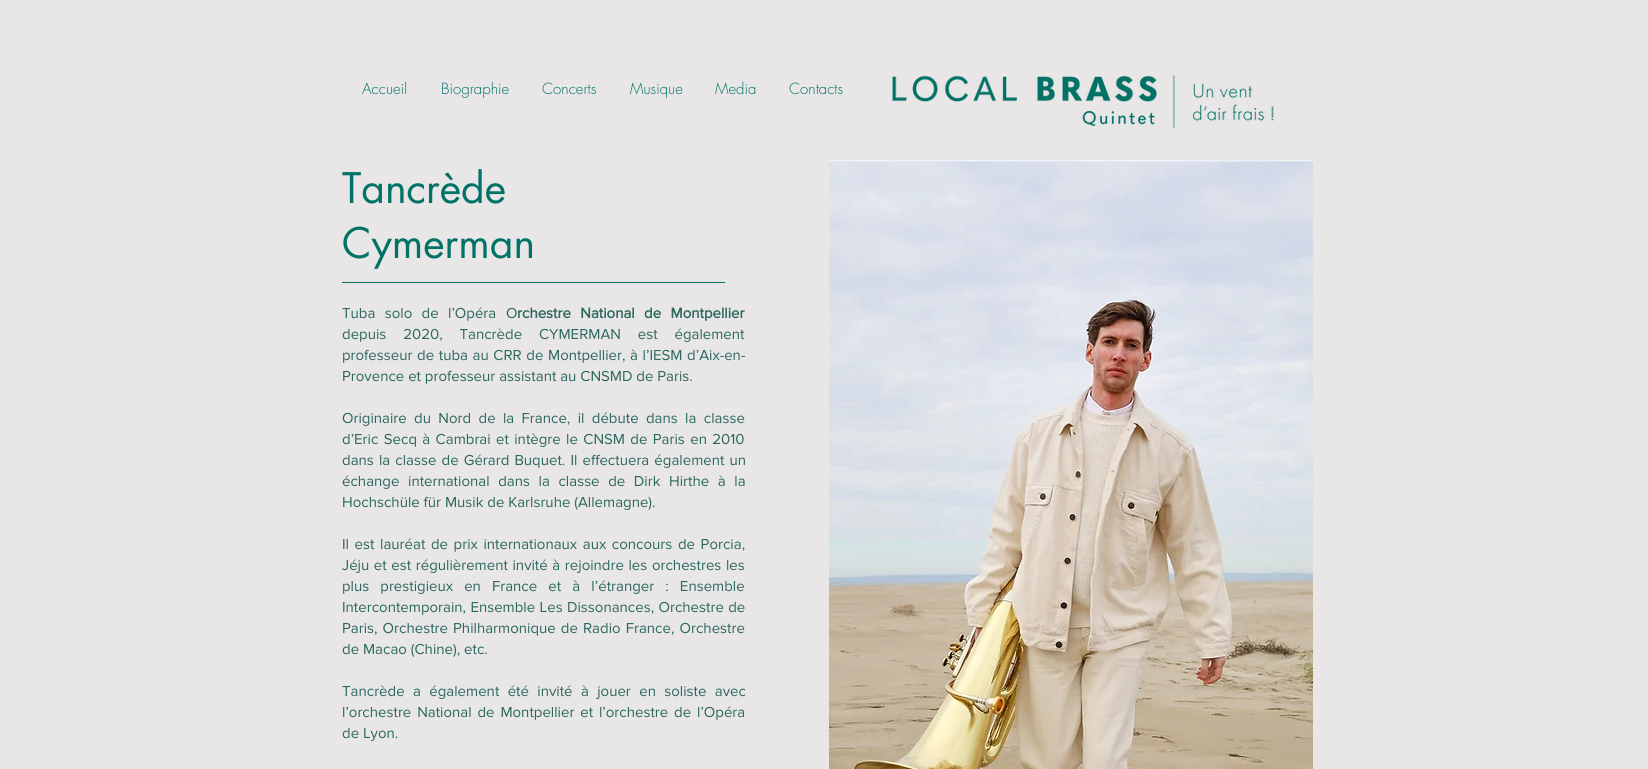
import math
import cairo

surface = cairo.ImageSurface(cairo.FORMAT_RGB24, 1648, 769)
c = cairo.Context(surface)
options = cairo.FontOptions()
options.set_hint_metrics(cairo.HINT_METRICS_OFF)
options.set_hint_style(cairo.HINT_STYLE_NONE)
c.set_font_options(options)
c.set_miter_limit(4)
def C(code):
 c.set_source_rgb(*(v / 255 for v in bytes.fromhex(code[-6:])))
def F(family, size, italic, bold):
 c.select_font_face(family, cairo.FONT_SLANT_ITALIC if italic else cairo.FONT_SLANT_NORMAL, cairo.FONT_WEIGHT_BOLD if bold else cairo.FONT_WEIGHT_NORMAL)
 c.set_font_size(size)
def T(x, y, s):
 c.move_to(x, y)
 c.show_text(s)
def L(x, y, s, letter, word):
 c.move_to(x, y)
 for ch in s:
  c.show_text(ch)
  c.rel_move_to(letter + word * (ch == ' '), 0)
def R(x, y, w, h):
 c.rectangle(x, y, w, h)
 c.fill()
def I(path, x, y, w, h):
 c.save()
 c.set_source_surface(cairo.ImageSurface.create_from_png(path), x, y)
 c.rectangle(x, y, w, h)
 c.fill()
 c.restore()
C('e8e6e6')
c.paint()
F('futura Light',15,0,0)
C('007266')
T(362,94,'Accueil')
T(441,94,'Biographie')
T(542,94,'Concerts')
T(630,94,'Musique')
T(715,94,'Media')
T(789,94,'Contacts')
I('1.png',890,75,384,54)
F('futura',41,0,0)
T(342,203,'Tancrède')
T(342,258,'Cymerman')
I('2.png',829,160,484,609)
R(342,282,383,1)
F('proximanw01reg',15,0,0)
C('2b685d')
L(342,318,'Tuba solo de l’Opéra',0,5.5)
T(506,318,'O')
F('proximanw01reg',15,0,1)
L(517,318,'rchestre National de Montpellier',0,5.5)
F('proximanw01reg',15,0,0)
L(342,339,'depuis 2020, Tancrède CYMERMAN est également',0,13)
L(342,360,'professeur de tuba au CRR de Montpellier, à l’IESM d’Aix-en-',0,.75)
T(342,381,'Provence et professeur assistant au CNSMD de Paris.')
L(342,423,'Originaire du Nord de la France, il débute dans la classe',0,3.5)
L(342,444,'d’Eric Secq à Cambrai et intègre le CNSM de Paris en 2010',0,1.5)
L(342,465,'dans la classe de Gérard Buquet. Il effectuera également un',0,1.25)
L(342,486,'échange international dans la classe de Dirk Hirthe à la',0,4.75)
T(342,507,'Hochschüle für Musik de Karlsruhe (Allemagne).')
L(342,549,'Il est lauréat de prix internationaux aux concours de Porcia,',0,1.75)
L(342,570,'Jéju et est régulièrement invité à rejoindre les orchestres les',0,.75)
L(342,591,'plus prestigieux en France et à l’étranger : Ensemble',0,7.25)
L(342,612,'Intercontemporain, Ensemble Les Dissonances, Orchestre de',0,.5)
L(342,633,'Paris, Orchestre Philharmonique de Radio France, Orchestre',0,1.25)
T(342,654,'de Macao (Chine), etc.')
L(342,696,'Tancrède a également été invité à jouer en soliste avec',0,4.5)
L(342,717,'l’orchestre National de Montpellier et l’orchestre de l’Opéra',0,2)
T(342,738,'de Lyon.')
surface.write_to_png('o.png')
